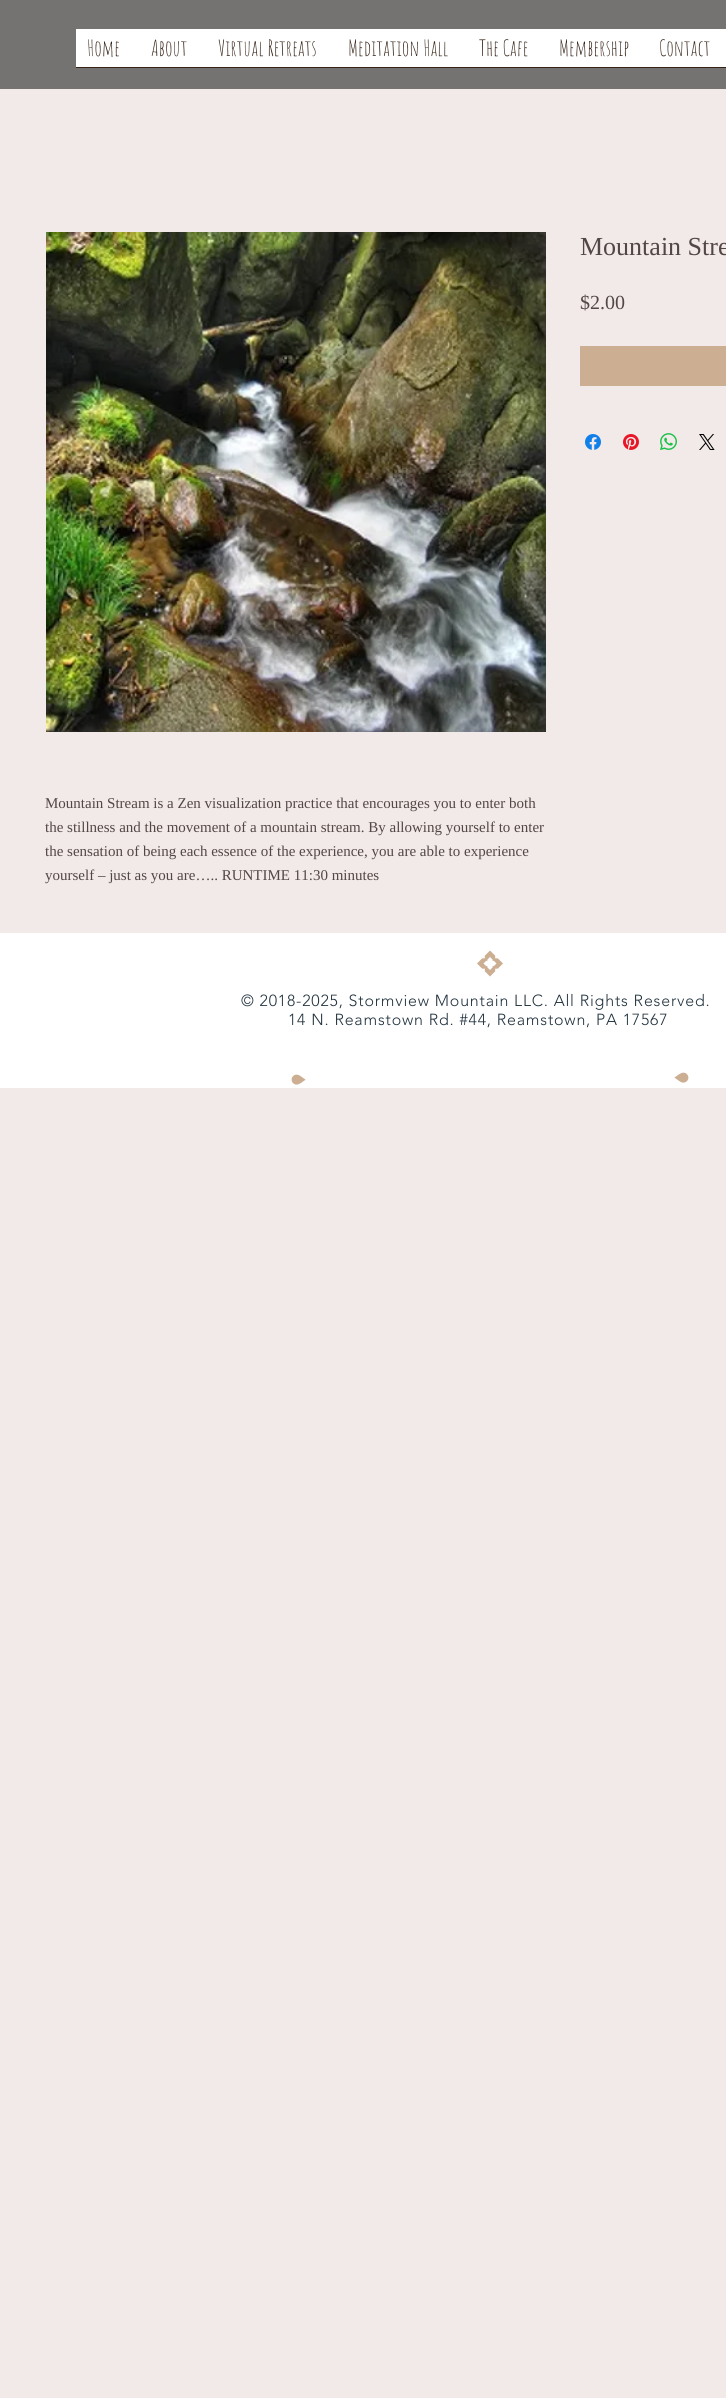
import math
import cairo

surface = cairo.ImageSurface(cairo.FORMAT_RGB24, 726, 2398)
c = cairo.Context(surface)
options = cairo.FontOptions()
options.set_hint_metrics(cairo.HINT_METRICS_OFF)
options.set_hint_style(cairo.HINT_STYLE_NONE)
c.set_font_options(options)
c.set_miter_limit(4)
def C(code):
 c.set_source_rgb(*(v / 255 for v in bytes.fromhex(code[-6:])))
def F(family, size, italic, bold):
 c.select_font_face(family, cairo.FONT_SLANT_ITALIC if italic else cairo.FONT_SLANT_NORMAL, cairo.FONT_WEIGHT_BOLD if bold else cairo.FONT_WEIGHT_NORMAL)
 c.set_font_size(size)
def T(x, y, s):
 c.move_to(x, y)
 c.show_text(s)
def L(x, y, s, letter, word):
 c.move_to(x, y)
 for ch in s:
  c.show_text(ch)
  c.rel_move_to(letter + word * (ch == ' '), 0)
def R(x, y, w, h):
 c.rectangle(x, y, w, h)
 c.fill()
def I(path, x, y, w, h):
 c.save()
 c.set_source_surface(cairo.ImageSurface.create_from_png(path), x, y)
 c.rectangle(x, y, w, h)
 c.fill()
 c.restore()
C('f1eae8')
c.paint()
C('757372')
R(0,0,726,89)
C('ffffff')
R(76,29,650,38)
C('342216')
R(76,67,650,1)
F('Amatic SC',22,0,0)
T(87,56,'Home')
T(151,56,'About')
T(218,56,'Virtual Retreats')
T(348,56,'Meditation Hall')
T(479,56,'The Cafe')
T(559,56,'Membership')
T(659,56,'Contact')
F('Liberation Serif',26,0,0)
C('534745')
T(580,255,'Mountain Stre')
F('Liberation Serif',20,0,0)
T(580,309,'$2.00')
C('ccae93')
R(580,346,146,40)
I('1.png',585,434,16,16)
I('2.png',623,434,16,16)
I('3.png',660,433,17,17)
I('4.png',699,434,16,16)
I('5.png',46,232,500,500)
F('Liberation Serif',15,0,0)
C('534745')
T(45,808,'Mountain Stream is a Zen visualization practice that encourages you to enter both')
T(45,832,'the stillness and the movement of a mountain stream. By allowing yourself to enter')
T(45,856,'the sensation of being each essence of the experience, you are able to experience')
T(45,880,'yourself – just as you are….. RUNTIME 11:30 minutes')
C('ffffff')
R(0,933,726,155)
I('6.png',477,950,26,27)
F('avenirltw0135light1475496 Light',16,0,0)
C('22333e')
L(241,1006,'© 2018-2025, Stormview Mountain LLC. All Rights Reserved.',.8,0)
L(288,1025,'14 N. Reamstown Rd. #44, Reamstown, PA 17567',.8,0)
I('7.png',291,1074,15,11)
I('8.png',674,1072,15,11)
surface.write_to_png('o.png')
